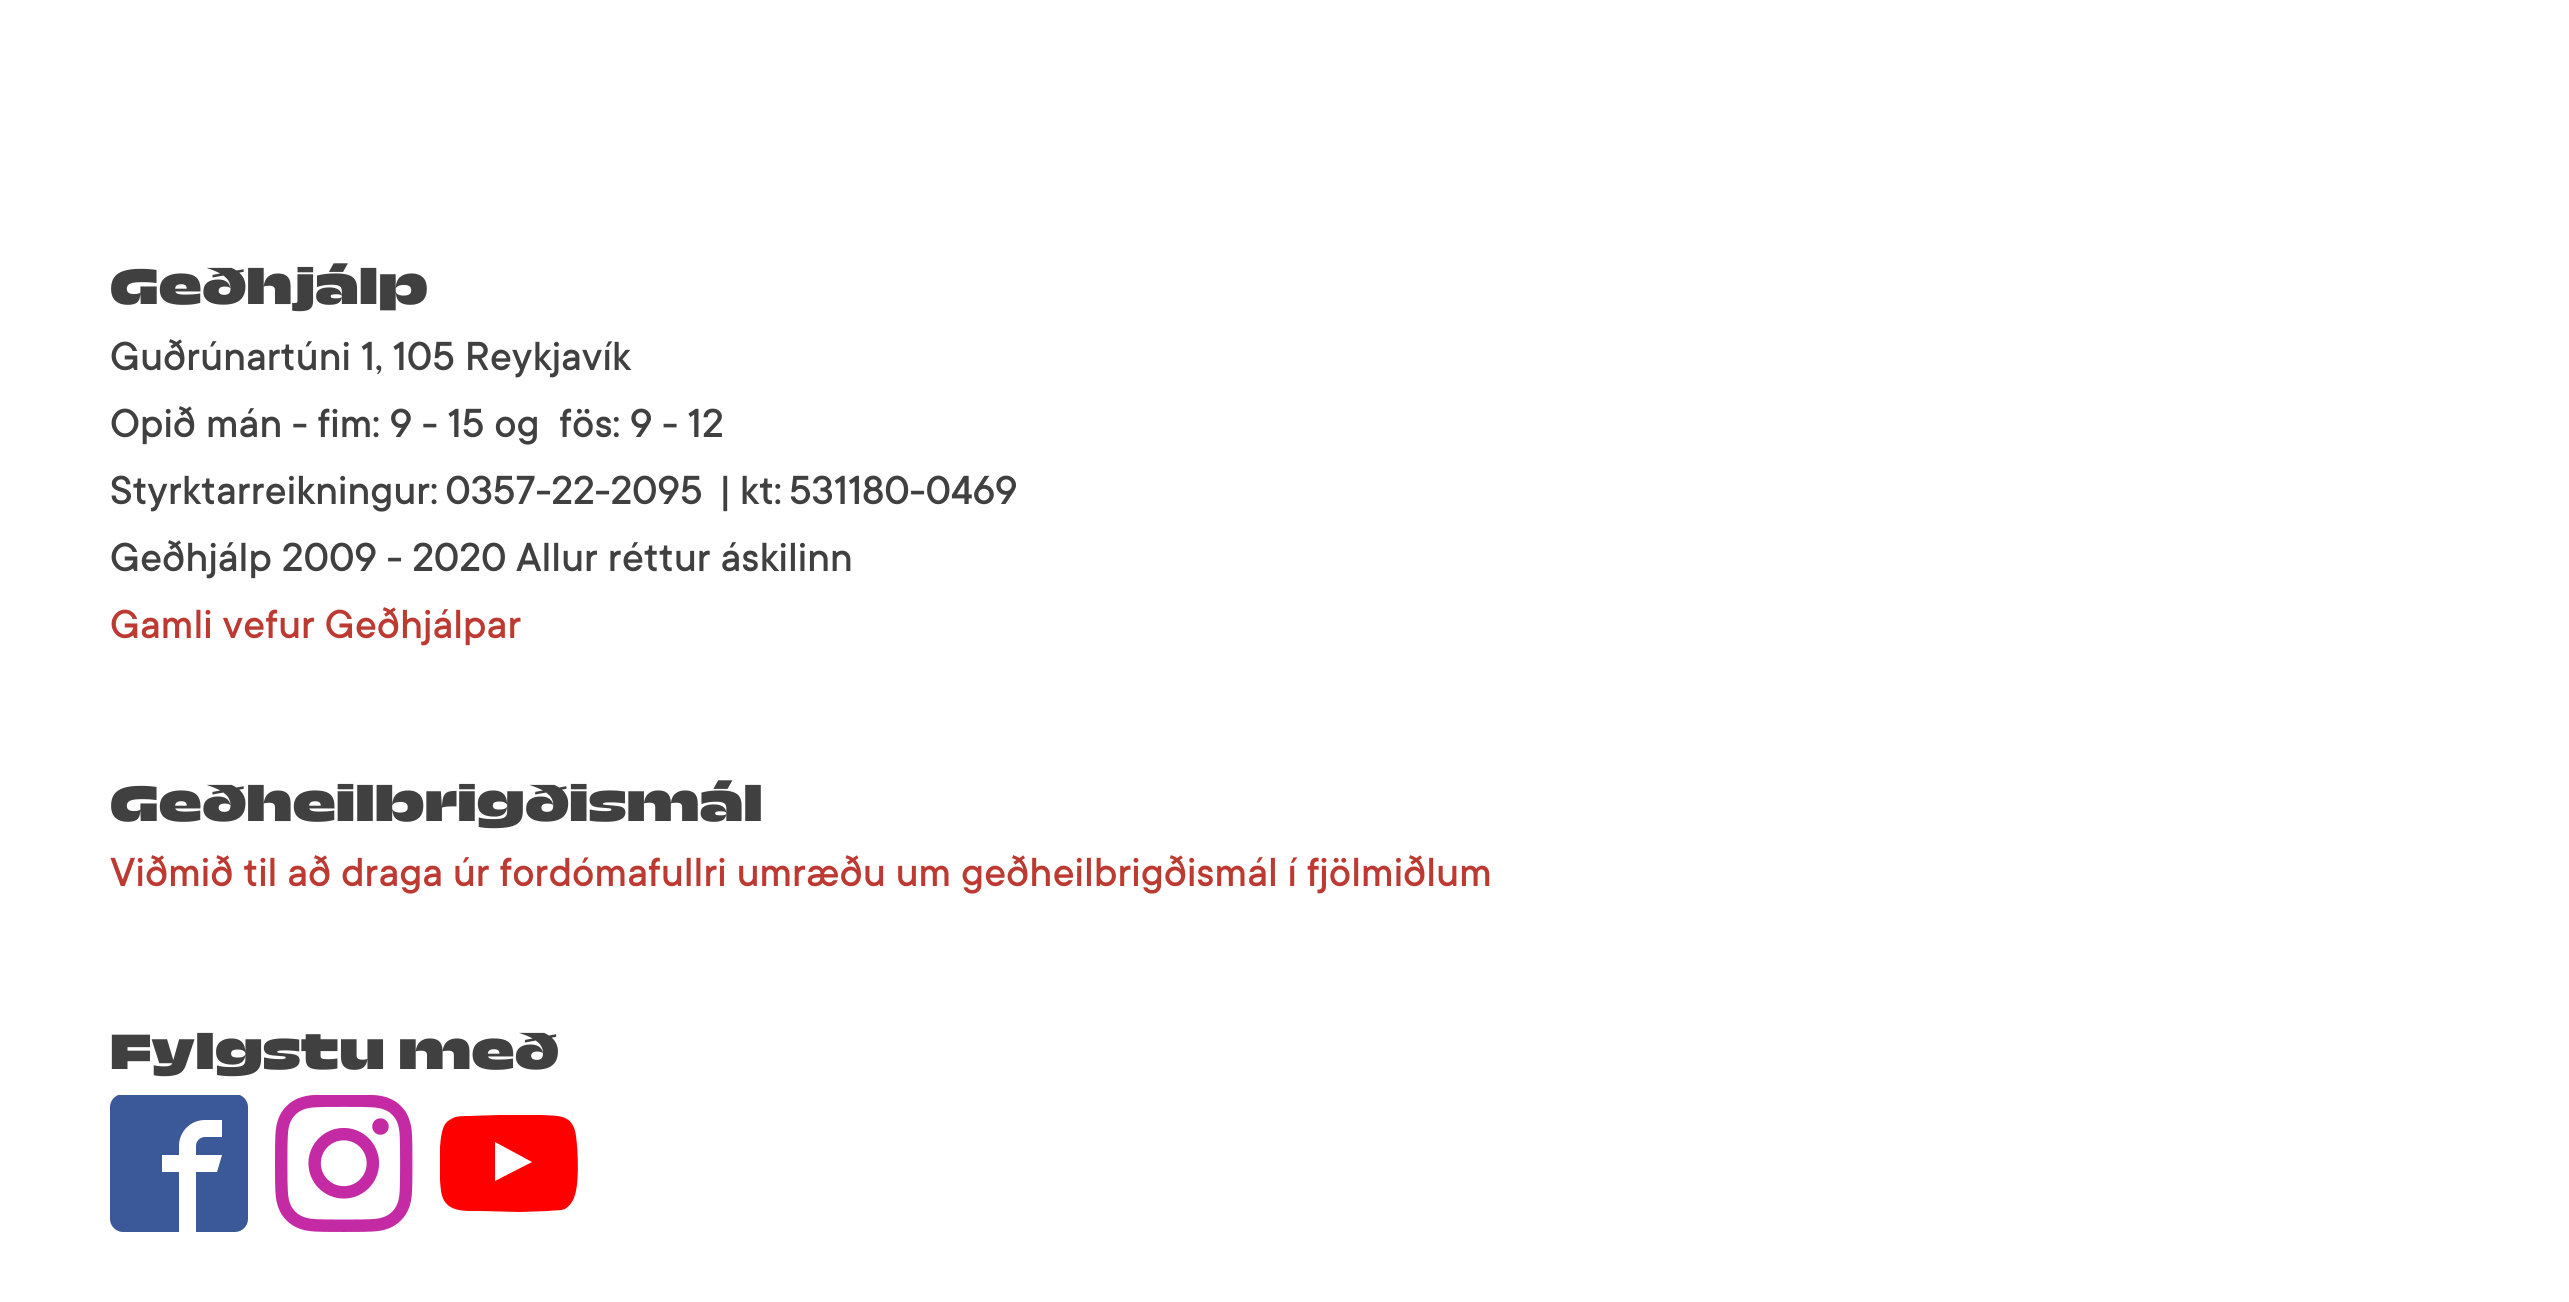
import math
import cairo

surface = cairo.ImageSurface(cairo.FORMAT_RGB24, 2569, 1302)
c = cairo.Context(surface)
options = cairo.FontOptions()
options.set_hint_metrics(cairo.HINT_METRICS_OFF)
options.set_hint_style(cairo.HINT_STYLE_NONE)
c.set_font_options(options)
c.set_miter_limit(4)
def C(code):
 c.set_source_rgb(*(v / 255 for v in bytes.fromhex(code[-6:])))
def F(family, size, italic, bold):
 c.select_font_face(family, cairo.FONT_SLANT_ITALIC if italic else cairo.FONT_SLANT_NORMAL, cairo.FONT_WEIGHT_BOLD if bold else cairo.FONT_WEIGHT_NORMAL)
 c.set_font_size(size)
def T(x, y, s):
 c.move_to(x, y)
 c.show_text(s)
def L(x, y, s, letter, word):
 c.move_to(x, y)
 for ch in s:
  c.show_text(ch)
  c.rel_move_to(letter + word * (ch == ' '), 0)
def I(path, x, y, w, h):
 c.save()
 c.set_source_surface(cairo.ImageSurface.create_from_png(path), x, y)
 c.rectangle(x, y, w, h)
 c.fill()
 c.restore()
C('ffffff')
c.paint()
F('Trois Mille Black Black',59.5,0,0)
C('404040')
T(110,304,'Geðhjálp')
F('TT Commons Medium',44.75,0,0)
T(110,370,'Guðrúnartúni 1, 105 Reykjavík')
T(110,437,'Opið mán - fim: 9 - 15 og  fös: 9 - 12')
L(110,504,'Styrktarreikningur: 0357-22-2095',0,-2.5)
L(718,504,'| kt: 531180-0469',0,-2.5)
T(110,571,'Geðhjálp 2009 - 2020 Allur réttur áskilinn')
C('bc3a31')
T(110,638,'Gamli vefur Geðhjálpar')
F('Trois Mille Black Black',59.5,0,0)
C('404040')
T(110,821,'Geðheilbrigðismál')
F('TT Commons Medium',44.75,0,0)
C('bc3a31')
L(110,886,'Viðmið til að draga úr fordómafullri umræðu um geðheilbrigðismál í fjölmiðlum',0,-.1)
F('Trois Mille Black Black',59.5,0,0)
C('404040')
T(110,1069,'Fylgstu með')
c.save()
c.rectangle(110,1095,138,137)
c.clip()
C('3b5998')
c.new_path()
c.move_to(235,1094)
c.line_to(123,1094)
c.curve_to(116,1094,110,1100,110,1107)
c.line_to(110,1219)
c.curve_to(110,1226,116,1232,123,1232)
c.line_to(179,1232)
c.line_to(179,1172)
c.line_to(162,1172)
c.line_to(162,1155)
c.line_to(179,1155)
c.line_to(179,1146)
c.curve_to(179,1132,190,1120,205,1120)
c.line_to(222,1120)
c.line_to(222,1137)
c.line_to(205,1137)
c.curve_to(200,1137,196,1141,196,1146)
c.line_to(196,1155)
c.line_to(222,1155)
c.line_to(217,1172)
c.line_to(196,1172)
c.line_to(196,1232)
c.line_to(235,1232)
c.curve_to(242,1232,248,1226,248,1219)
c.line_to(248,1107)
c.curve_to(248,1100,242,1094,235,1094)
c.close_path()
c.fill()
c.restore()
I('1.png',275,1095,138,137)
c.save()
c.rectangle(440,1095,138,137)
c.clip()
C('ff0000')
c.new_path()
c.move_to(576,1136)
c.curve_to(573,1114,559,1116,541,1115)
c.line_to(499,1115)
c.line_to(468,1116)
c.curve_to(463,1116,457,1116,453,1118)
c.curve_to(449,1120,446,1122,444,1126)
c.curve_to(438,1139,439,1176,441,1191)
c.curve_to(444,1213,464,1211,482,1211)
c.line_to(519,1212)
c.line_to(549,1211)
c.curve_to(554,1210,560,1211,565,1209)
c.curve_to(568,1207,571,1204,573,1200)
c.curve_to(580,1187,578,1151,576,1136)
c.close_path()
c.move_to(495,1181)
c.line_to(495,1142)
c.line_to(532,1162)
c.close_path()
c.fill()
c.restore()
surface.write_to_png('o.png')
